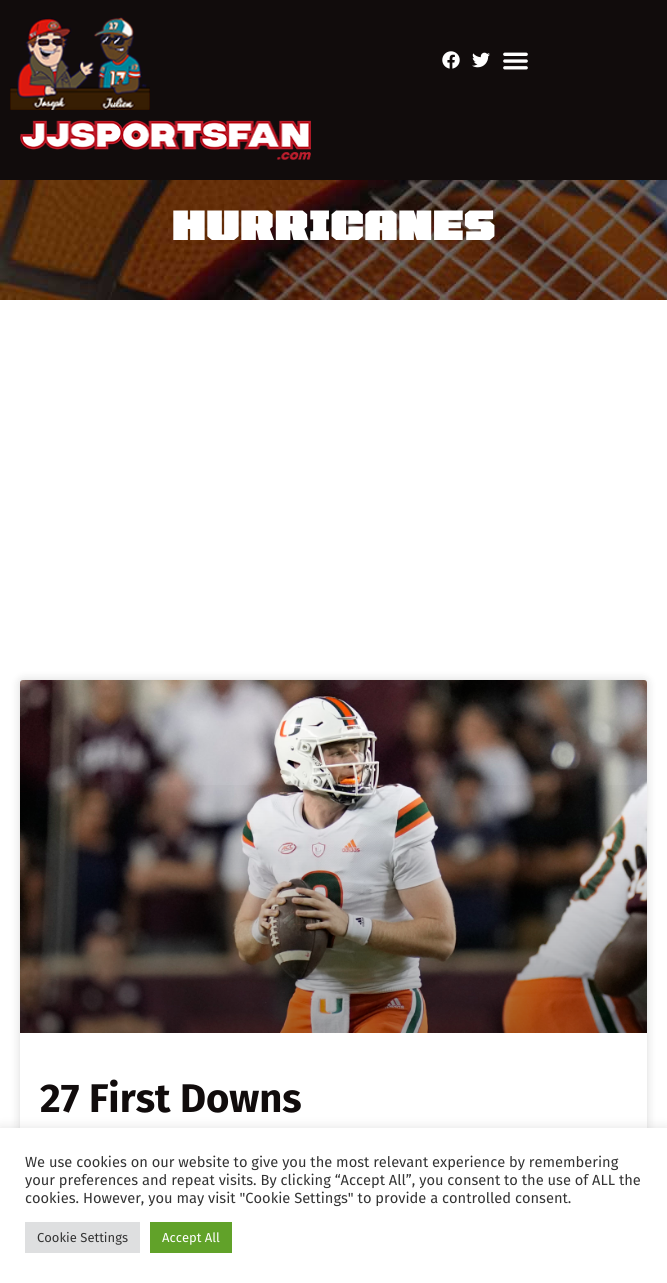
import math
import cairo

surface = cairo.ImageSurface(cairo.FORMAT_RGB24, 667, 1283)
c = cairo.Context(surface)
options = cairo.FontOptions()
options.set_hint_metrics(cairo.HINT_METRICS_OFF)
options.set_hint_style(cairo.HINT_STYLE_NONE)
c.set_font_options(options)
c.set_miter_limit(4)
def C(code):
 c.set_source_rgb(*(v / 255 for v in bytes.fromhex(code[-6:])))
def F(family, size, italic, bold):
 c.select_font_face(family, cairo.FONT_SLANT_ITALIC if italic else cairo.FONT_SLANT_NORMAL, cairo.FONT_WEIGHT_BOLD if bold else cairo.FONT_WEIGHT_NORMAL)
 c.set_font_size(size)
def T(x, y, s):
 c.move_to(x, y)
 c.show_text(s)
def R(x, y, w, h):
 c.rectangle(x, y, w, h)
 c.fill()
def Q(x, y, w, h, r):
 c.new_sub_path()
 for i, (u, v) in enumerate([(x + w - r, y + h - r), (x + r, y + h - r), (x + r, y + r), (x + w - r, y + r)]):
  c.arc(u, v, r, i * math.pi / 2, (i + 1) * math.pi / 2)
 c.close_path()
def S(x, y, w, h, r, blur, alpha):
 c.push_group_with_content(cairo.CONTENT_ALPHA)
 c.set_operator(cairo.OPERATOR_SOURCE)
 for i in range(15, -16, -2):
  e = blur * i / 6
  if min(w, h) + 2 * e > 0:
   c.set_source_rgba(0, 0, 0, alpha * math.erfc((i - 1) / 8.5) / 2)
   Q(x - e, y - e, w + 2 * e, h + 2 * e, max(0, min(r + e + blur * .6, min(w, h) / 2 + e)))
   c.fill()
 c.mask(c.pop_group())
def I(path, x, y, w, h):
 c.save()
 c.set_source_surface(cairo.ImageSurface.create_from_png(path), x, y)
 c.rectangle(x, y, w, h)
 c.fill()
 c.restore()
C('ffffff')
c.paint()
C('110c0c')
R(0,0,667,180)
I('1.png',10,17,140,93)
I('2.png',442,51,18,18)
I('3.png',472,52,18,16)
I('4.png',503,52,25,18)
I('5.png',20,120,291,40)
I('6.png',0,180,667,120)
F('Tomorrow Black',40,0,0)
C('ffffff')
T(172,240,'HURRICANES')
C('000000')
S(20,680,627,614,3,5,.15)
C('ffffff')
Q(20,680,627,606,3)
c.fill()
I('7.png',20,680,627,353)
gradient = cairo.LinearGradient(334,1033,334,680)
gradient.add_color_stop_rgba(0,0,0,0,.35)
gradient.add_color_stop_rgba(.75,0,0,0,0)
c.set_source(gradient)
R(20,785,627,248)
F('Fira Sans',40,0,1)
C('110c0c')
T(40,1112,'27 First Downs')
C('acabab')
S(0,1127,667,155,0,5,.3)
C('ffffff')
R(0,1128,667,155)
F('Fira Sans',14.65,0,0)
C('333333')
T(25,1167,'We use cookies on our website to give you the most relevant experience by remembering')
T(25,1185,'your preferences and repeat visits. By clicking “Accept All”, you consent to the use of ALL the')
T(25,1203,'cookies. However, you may visit "Cookie Settings" to provide a controlled consent.')
C('dedfe0')
R(25,1222,115,31)
F('Fira Sans',13,0,0)
C('333333')
T(37,1242,'Cookie Settings')
C('61a229')
R(150,1222,82,31)
C('ffffff')
T(162,1242,'Accept All')
surface.write_to_png('o.png')
